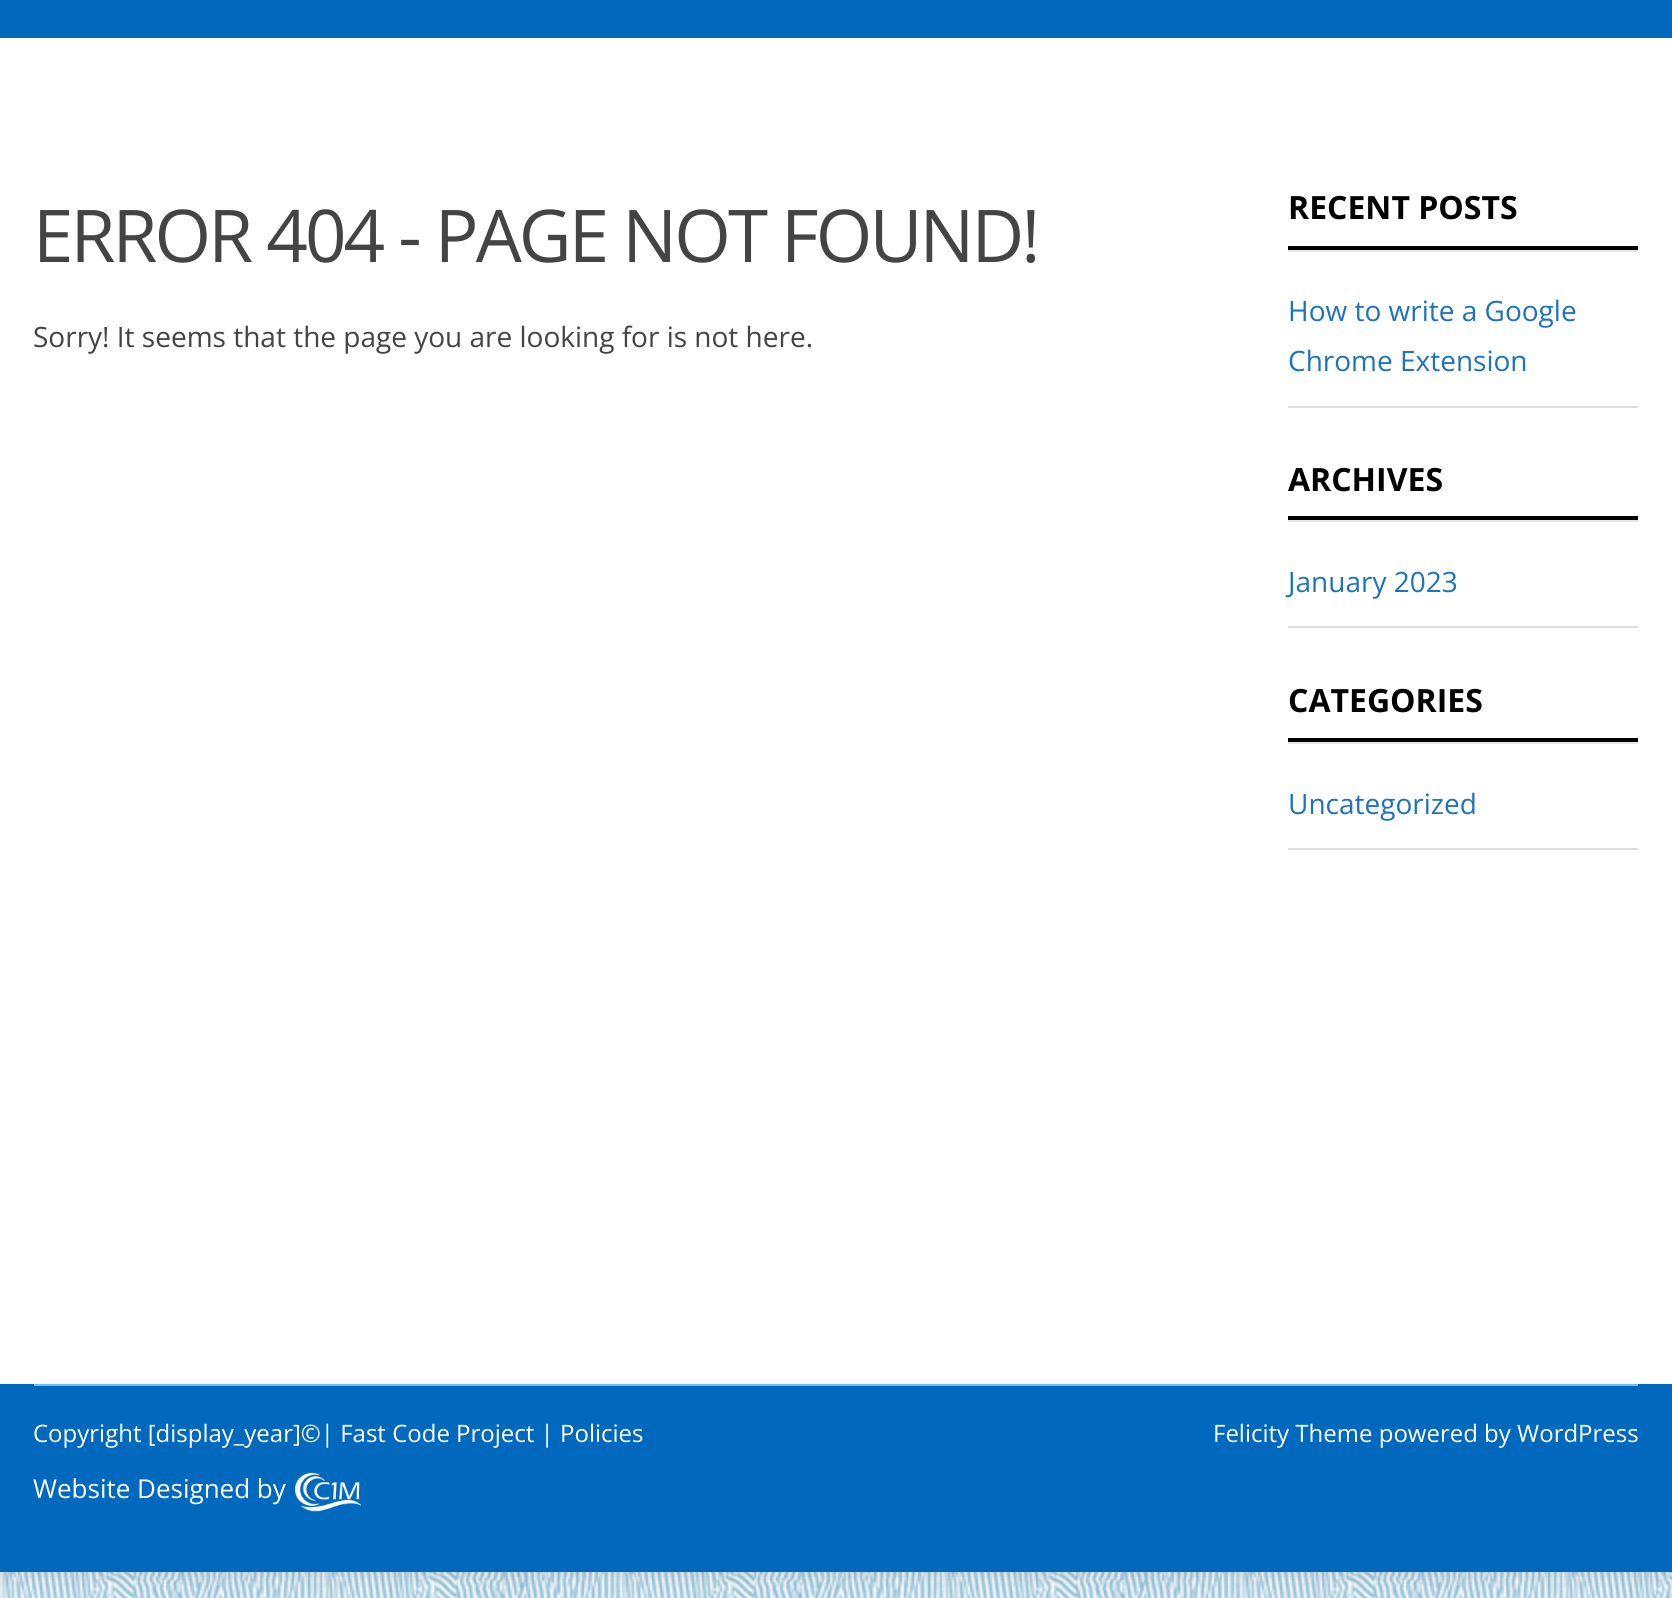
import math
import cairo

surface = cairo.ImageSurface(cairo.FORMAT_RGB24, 1672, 1598)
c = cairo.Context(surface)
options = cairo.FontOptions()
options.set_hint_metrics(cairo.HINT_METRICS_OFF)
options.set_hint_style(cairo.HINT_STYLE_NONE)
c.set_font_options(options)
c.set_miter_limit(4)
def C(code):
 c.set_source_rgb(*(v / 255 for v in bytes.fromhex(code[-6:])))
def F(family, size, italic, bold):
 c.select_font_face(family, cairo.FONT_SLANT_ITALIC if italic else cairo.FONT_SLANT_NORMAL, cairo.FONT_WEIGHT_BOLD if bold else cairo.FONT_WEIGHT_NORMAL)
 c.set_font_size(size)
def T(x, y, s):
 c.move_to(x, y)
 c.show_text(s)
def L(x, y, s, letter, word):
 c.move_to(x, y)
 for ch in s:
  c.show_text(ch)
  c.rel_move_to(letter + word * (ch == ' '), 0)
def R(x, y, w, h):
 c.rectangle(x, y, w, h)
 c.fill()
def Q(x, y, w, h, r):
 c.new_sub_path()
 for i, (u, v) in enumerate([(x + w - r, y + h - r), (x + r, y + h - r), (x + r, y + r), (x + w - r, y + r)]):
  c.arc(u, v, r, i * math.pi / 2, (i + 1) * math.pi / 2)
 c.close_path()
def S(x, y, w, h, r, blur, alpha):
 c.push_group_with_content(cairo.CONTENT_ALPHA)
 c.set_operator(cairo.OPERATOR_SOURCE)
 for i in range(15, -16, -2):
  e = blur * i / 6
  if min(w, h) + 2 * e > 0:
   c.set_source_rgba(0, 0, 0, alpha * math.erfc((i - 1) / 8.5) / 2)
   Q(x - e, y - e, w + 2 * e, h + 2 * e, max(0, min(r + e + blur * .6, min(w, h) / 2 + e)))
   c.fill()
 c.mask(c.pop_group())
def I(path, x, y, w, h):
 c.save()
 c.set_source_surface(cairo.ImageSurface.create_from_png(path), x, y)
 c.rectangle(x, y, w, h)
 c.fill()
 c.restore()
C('ffffff')
c.paint()
I('1.png',0,1572,1672,26)
C('575757')
S(0,-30,1672,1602,0,10,.2)
C('ffffff')
R(0,38,1672,1346)
C('0069be')
R(0,0,1672,38)
F('Open Sans',72.75,0,0)
C('444444')
L(33,262,'ERROR 404 - PAGE NOT FOUND!',-2.9,0)
F('Open Sans',28,0,0)
T(33,347,'Sorry! It seems that the page you are looking for is not here.')
C('e6e6e6')
R(1288,250,350,2)
C('000000')
R(1288,246,350,4)
F('Open Sans',32,0,1)
T(1288,219,'RECENT POSTS')
C('dddddd')
R(1288,406,350,2)
F('Open Sans',28,0,0)
C('1e73be')
T(1288,321,'How to write a Google')
T(1288,371,'Chrome Extension')
C('e6e6e6')
R(1288,520,350,2)
C('000000')
R(1288,516,350,4)
F('Open Sans',32,0,1)
T(1288,491,'ARCHIVES')
C('dddddd')
R(1288,626,350,2)
F('Open Sans',28,0,0)
C('1e73be')
T(1288,592,'January 2023')
C('e6e6e6')
R(1288,742,350,2)
C('000000')
R(1288,738,350,4)
F('Open Sans',32,0,1)
T(1288,712,'CATEGORIES')
C('dddddd')
R(1288,848,350,2)
F('Open Sans',28,0,0)
C('1e73be')
T(1288,814,'Uncategorized')
C('0069be')
R(0,1384,1672,188)
C('6ec0f6')
R(34,1384,1604,2)
F('Open Sans',24,0,0)
C('ffffff')
T(33,1442,'Copyright [display_year]©| Fast Code Project | Policies')
F('Open Sans',26,0,0)
T(33,1498,'Website Designed by')
I('2.png',295,1472,66,40)
F('Open Sans',24,0,0)
T(1213,1442,'Felicity Theme powered by WordPress')
surface.write_to_png('o.png')
